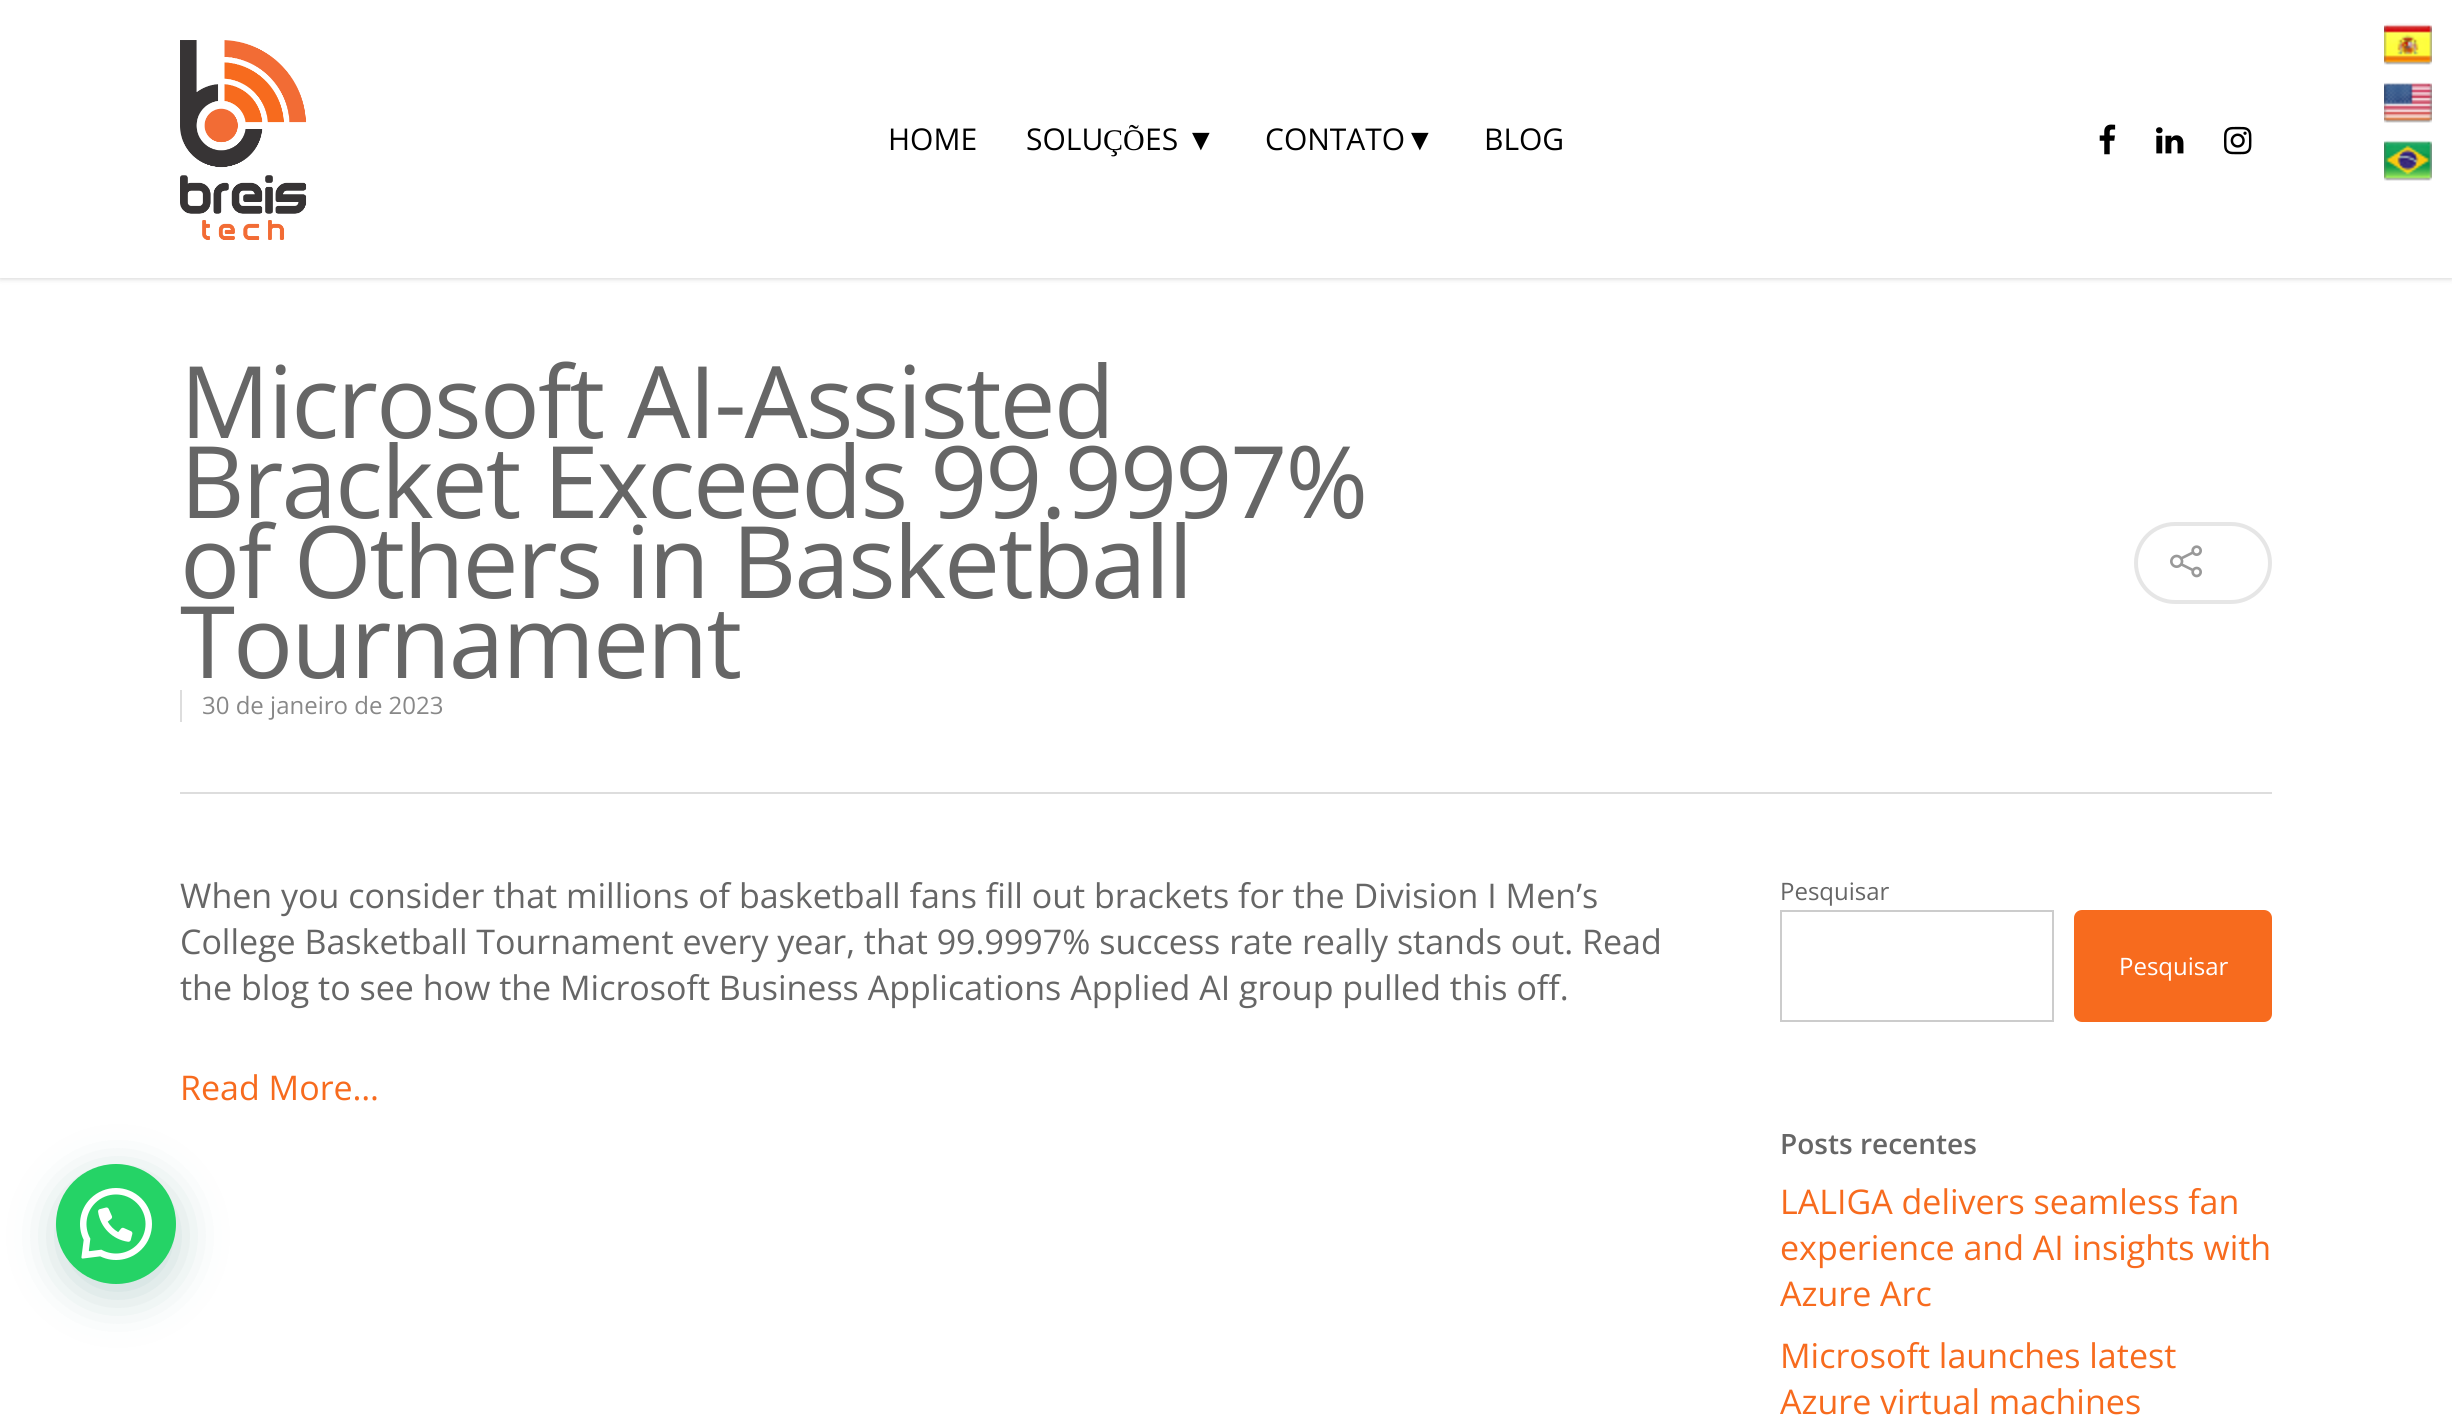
import math
import cairo

surface = cairo.ImageSurface(cairo.FORMAT_RGB24, 2452, 1419)
c = cairo.Context(surface)
options = cairo.FontOptions()
options.set_hint_metrics(cairo.HINT_METRICS_OFF)
options.set_hint_style(cairo.HINT_STYLE_NONE)
c.set_font_options(options)
c.set_miter_limit(4)
def C(code):
 c.set_source_rgb(*(v / 255 for v in bytes.fromhex(code[-6:])))
def F(family, size, italic, bold):
 c.select_font_face(family, cairo.FONT_SLANT_ITALIC if italic else cairo.FONT_SLANT_NORMAL, cairo.FONT_WEIGHT_BOLD if bold else cairo.FONT_WEIGHT_NORMAL)
 c.set_font_size(size)
def T(x, y, s):
 c.move_to(x, y)
 c.show_text(s)
def L(x, y, s, letter, word):
 c.move_to(x, y)
 for ch in s:
  c.show_text(ch)
  c.rel_move_to(letter + word * (ch == ' '), 0)
def R(x, y, w, h):
 c.rectangle(x, y, w, h)
 c.fill()
def Q(x, y, w, h, r):
 c.new_sub_path()
 for i, (u, v) in enumerate([(x + w - r, y + h - r), (x + r, y + h - r), (x + r, y + r), (x + w - r, y + r)]):
  c.arc(u, v, r, i * math.pi / 2, (i + 1) * math.pi / 2)
 c.close_path()
def S(x, y, w, h, r, blur, alpha):
 c.push_group_with_content(cairo.CONTENT_ALPHA)
 c.set_operator(cairo.OPERATOR_SOURCE)
 for i in range(15, -16, -2):
  e = blur * i / 6
  if min(w, h) + 2 * e > 0:
   c.set_source_rgba(0, 0, 0, alpha * math.erfc((i - 1) / 8.5) / 2)
   Q(x - e, y - e, w + 2 * e, h + 2 * e, max(0, min(r + e + blur * .6, min(w, h) / 2 + e)))
   c.fill()
 c.mask(c.pop_group())
def I(path, x, y, w, h):
 c.save()
 c.set_source_surface(cairo.ImageSurface.create_from_png(path), x, y)
 c.rectangle(x, y, w, h)
 c.fill()
 c.restore()
C('ffffff')
c.paint()
C('000000')
S(0,0,2452,278,0,3,.22)
C('ffffff')
R(0,0,2452,278)
I('1.png',2384,23,48,42)
I('2.png',2384,82,48,41)
I('3.png',2384,140,48,41)
C('075e54')
S(58,1176,120,120,60,24,.24)
C('25d366')
c.arc(116,1224,60,0,2 * math.pi)
c.fill()
I('4.png',80,1188,72,72)
I('5.png',180,40,127,200)
F('Open Sans',30,0,0)
C('000000')
T(888,150,'HOME')
T(1026,150,'SOLU')
F('Liberation Serif',30,0,0)
T(1103,150,'ÇÕ')
F('Open Sans',30,0,0)
T(1145,150,'ES')
F('Liberation Serif',30,0,0)
T(1186,150,'▼')
F('Open Sans',30,0,0)
T(1265,150,'CONTATO')
F('Liberation Serif',30,0,0)
T(1405,150,'▼')
F('Open Sans',30,0,0)
T(1484,150,'BLOG')
I('6.png',2099,124,17,31)
I('7.png',2156,127,28,27)
I('8.png',2224,126,28,29)
C('dddddd')
R(180,792,2092,2)
F('Open Sans',100,0,0)
C('666666')
L(180,438,'Microsoft AI-Assisted',-2,0)
L(180,518,'Bracket Exceeds 99.9997%',-2,0)
L(180,598,'of Others in Basketball',-2,0)
L(180,678,'Tournament',-2,0)
Q(2136,524,134,78,39)
C('e6e6e6')
c.set_line_width(4)
c.stroke()
I('9.png',2170,545,32,33)
C('dddddd')
R(180,690,2,32)
F('Open Sans',24,0,0)
C('888888')
T(202,714,'30 de janeiro de 2023')
F('Open Sans',34,0,0)
C('666666')
T(180,908,'When you consider that millions of basketball fans fill out brackets for the Division I Men’s')
T(180,954,'College Basketball Tournament every year, that 99.9997% success rate really stands out. Read')
T(180,1000,'the blog to see how the Microsoft Business Applications Applied AI group pulled this off.')
C('f76b1e')
T(180,1100,'Read More…')
F('Open Sans',24,0,0)
C('666666')
T(1780,900,'Pesquisar')
c.rectangle(1781,911,272,110)
C('cccccc')
c.set_line_width(2)
c.stroke()
C('f76b1e')
Q(2074,910,198,112,8)
c.fill()
C('ffffff')
T(2119,975,'Pesquisar')
F('Open Sans SemiBold',28,0,0)
C('666666')
T(1780,1154,'Posts recentes')
F('Open Sans',34,0,0)
C('f76b1e')
T(1780,1214,'LALIGA delivers seamless fan')
T(1780,1260,'experience and AI insights with')
T(1780,1306,'Azure Arc')
T(1780,1368,'Microsoft launches latest')
T(1780,1414,'Azure virtual machines')
surface.write_to_png('o.png')
